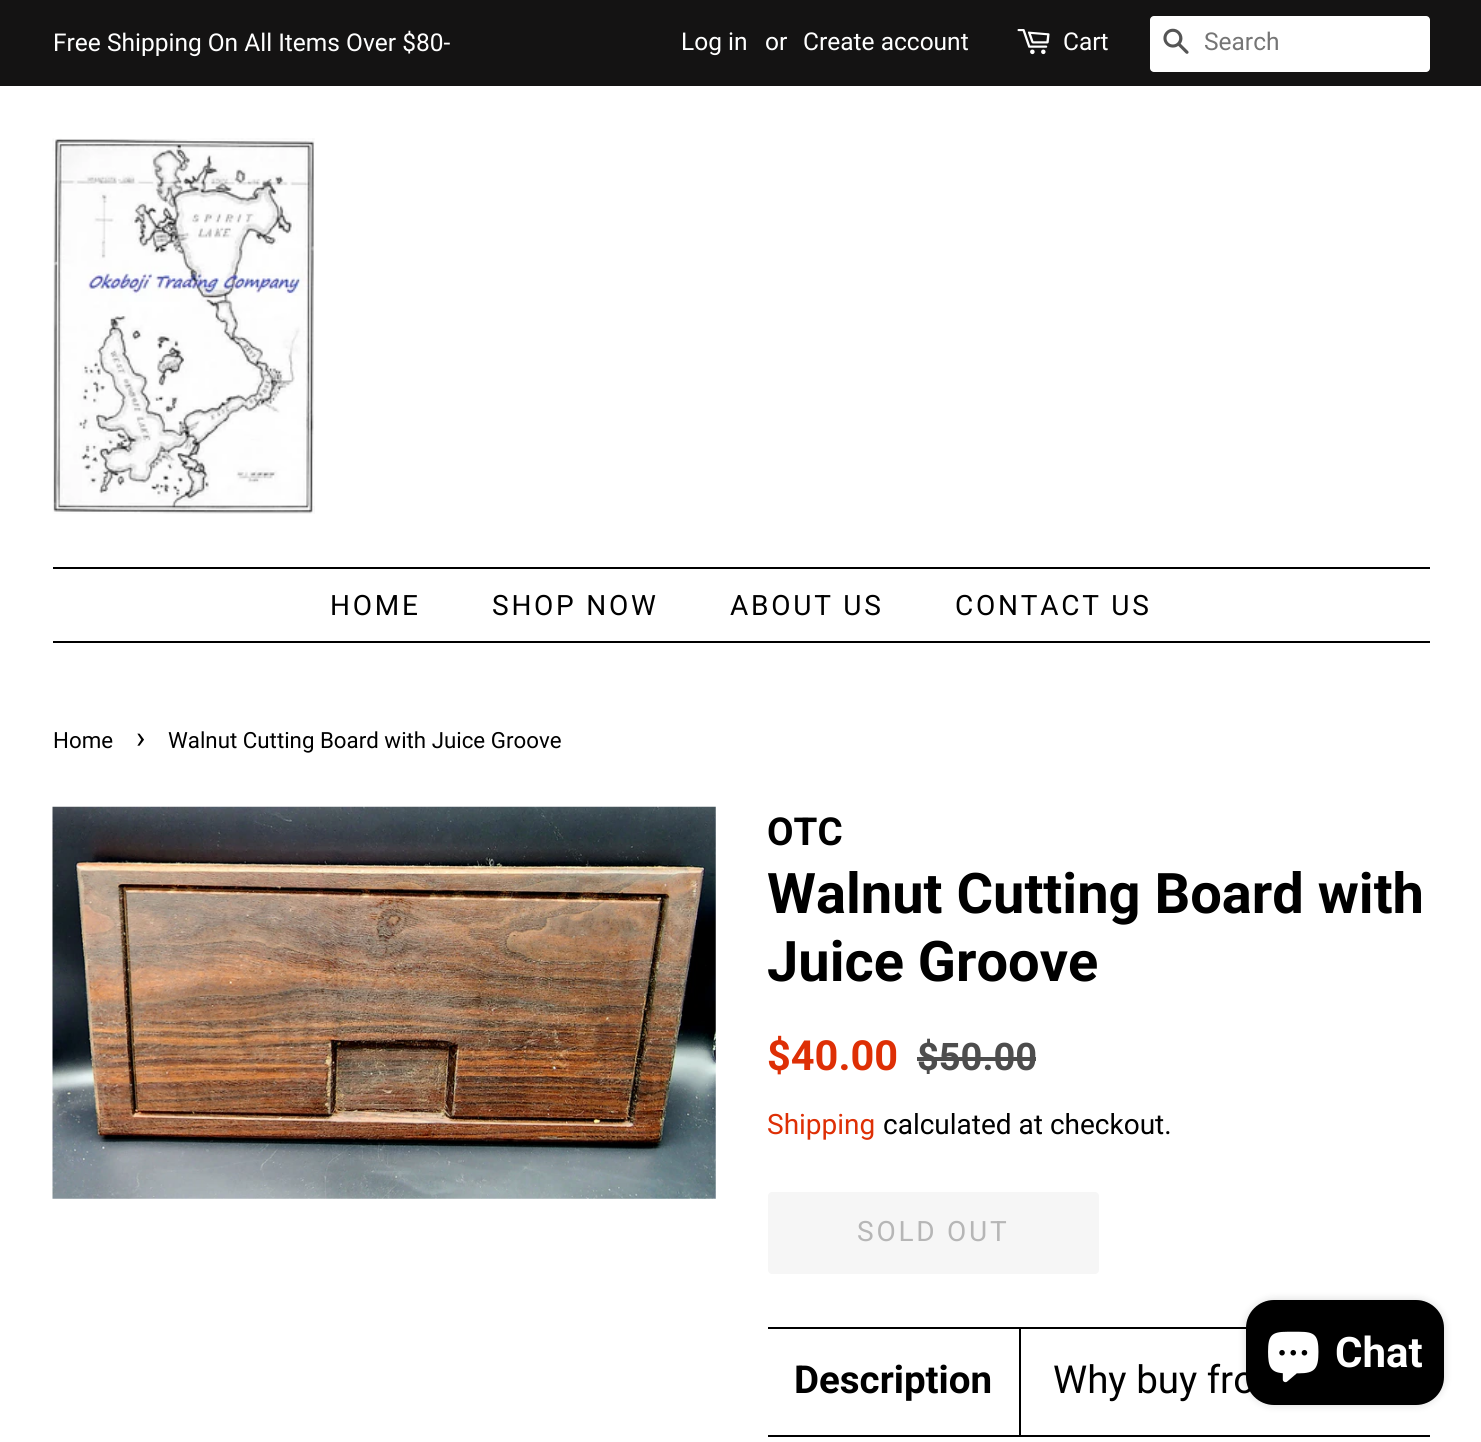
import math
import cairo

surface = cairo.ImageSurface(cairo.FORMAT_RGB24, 1481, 1442)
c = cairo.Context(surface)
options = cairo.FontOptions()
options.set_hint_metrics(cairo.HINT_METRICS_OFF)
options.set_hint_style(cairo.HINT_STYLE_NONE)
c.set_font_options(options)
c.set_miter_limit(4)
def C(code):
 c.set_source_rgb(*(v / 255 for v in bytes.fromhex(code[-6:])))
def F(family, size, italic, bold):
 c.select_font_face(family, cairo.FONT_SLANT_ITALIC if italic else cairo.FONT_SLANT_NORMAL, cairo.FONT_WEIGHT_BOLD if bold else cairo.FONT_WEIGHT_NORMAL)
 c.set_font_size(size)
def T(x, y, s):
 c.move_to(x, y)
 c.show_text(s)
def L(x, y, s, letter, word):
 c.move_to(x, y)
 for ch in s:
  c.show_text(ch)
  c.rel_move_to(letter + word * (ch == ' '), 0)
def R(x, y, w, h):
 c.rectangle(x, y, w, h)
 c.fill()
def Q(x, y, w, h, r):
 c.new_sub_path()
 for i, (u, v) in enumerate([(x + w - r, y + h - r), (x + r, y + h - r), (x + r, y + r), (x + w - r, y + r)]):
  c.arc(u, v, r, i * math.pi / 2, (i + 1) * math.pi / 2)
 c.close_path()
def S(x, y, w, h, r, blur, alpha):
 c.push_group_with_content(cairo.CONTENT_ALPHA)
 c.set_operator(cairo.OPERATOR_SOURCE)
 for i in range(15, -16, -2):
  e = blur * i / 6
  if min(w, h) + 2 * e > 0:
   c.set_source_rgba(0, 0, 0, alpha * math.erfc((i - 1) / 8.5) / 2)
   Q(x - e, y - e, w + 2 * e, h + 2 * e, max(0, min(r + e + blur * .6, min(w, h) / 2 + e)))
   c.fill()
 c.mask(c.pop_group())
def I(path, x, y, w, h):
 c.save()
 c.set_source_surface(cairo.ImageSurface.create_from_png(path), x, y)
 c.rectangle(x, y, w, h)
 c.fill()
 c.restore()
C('ffffff')
c.paint()
C('141313')
R(0,0,1481,86)
F('Roboto',24.5,0,0)
C('ffffff')
T(53,51,'Free Shipping On All Items Over $80-')
T(681,50,'Log in')
T(765,50,'or')
T(803,50,'Create account')
I('1.png',1017,29,33,26)
T(1063,50,'Cart')
Q(1150,16,280,56,4)
c.fill()
I('2.png',1163,28,26,26)
C('757575')
T(1204,50,'Search')
I('3.png',52,138,263,376)
C('000000')
R(53,567,1377,2)
R(53,641,1377,2)
F('Roboto',28,0,0)
L(330,615,'HOME',2.75,0)
L(492,615,'SHOP NOW',2.75,0)
L(730,615,'ABOUT US',2.75,0)
L(955,615,'CONTACT US',2.75,0)
F('Roboto',22.3,0,0)
T(53,748,'Home')
F('Roboto',31,0,0)
T(136,748,'›')
F('Roboto',22.3,0,0)
T(168,748,'Walnut Cutting Board with Juice Groove')
I('4.png',52,806,664,393)
F('Roboto',38.5,0,1)
T(767,845,'OTC')
F('Roboto',56,0,1)
T(767,913,'Walnut Cutting Board with')
T(767,981,'Juice Groove')
F('Roboto',41.5,0,1)
C('de2f05')
T(767,1070,'$40.00')
F('Roboto',38,0,1)
C('4d4d4d')
T(917,1070,'$50.00')
R(917,1057,119,4)
F('Roboto',28,0,0)
C('de2f05')
T(767,1134,'Shipping')
C('000000')
T(883,1134,'calculated at checkout.')
C('f6f6f6')
Q(768,1192,331,82,4)
c.fill()
C('b6b6b6')
L(857,1241,'SOLD OUT',2.75,0)
C('000000')
R(768,1327,479,2)
R(768,1435,662,2)
R(1019,1328,2,107)
F('Roboto',38.5,0,1)
T(794,1393,'Description')
F('Roboto',38.5,0,0)
T(1053,1393,'Why buy fro')
C('000000')
S(1246,1300,198,105,28,4.5,.15)
C('000000')
Q(1246,1300,198,105,28)
c.fill()
I('5.png',1268,1331,51,52)
F('Roboto',42,0,1)
C('ffffff')
T(1335,1367,'Chat')
surface.write_to_png('o.png')
